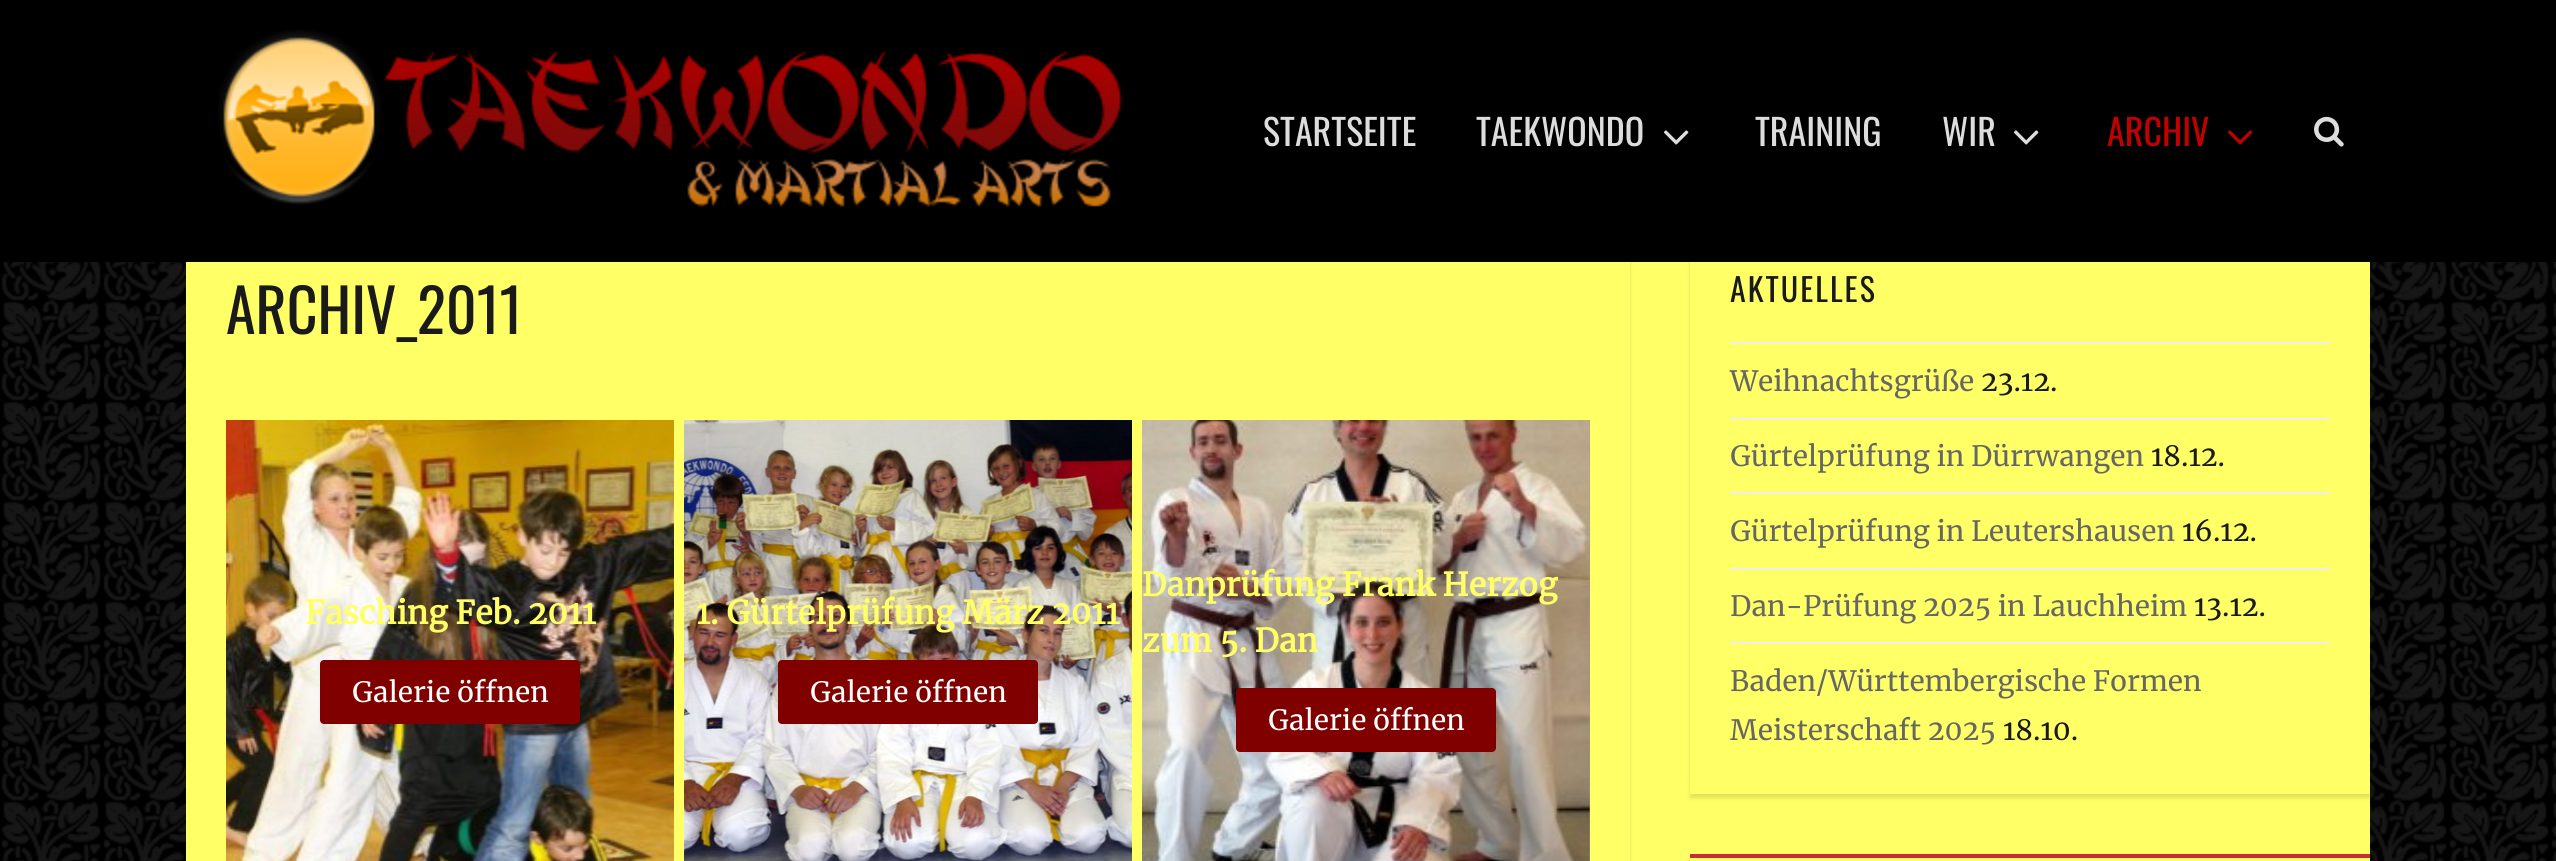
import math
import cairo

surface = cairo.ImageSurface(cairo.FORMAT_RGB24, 2556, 861)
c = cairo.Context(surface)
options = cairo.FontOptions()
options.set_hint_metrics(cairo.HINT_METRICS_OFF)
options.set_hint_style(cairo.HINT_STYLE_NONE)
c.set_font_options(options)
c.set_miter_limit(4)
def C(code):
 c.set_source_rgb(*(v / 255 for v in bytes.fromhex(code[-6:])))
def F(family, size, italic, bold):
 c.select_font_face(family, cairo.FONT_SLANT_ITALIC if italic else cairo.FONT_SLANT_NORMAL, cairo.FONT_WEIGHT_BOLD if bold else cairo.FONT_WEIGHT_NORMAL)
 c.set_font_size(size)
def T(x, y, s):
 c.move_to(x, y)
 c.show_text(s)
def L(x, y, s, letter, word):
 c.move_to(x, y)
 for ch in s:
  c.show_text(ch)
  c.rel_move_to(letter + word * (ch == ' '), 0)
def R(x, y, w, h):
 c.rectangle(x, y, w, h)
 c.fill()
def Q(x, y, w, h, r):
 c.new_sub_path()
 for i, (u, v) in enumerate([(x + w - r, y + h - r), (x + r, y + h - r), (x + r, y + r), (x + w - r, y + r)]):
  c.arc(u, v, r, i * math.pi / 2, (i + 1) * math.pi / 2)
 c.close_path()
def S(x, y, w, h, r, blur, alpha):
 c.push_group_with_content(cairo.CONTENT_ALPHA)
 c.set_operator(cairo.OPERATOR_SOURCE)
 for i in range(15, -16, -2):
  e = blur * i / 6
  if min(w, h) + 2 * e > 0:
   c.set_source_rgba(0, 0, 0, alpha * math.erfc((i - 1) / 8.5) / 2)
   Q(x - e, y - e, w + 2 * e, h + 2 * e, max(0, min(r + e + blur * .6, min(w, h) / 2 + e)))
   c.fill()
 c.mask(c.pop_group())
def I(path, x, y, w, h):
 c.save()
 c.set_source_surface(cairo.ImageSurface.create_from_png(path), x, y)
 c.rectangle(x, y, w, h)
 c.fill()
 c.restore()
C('ffffff')
c.paint()
I('1.png',0,262,2556,599)
C('ffff66')
R(186,262,2184,599)
c.save()
c.set_fill_rule(cairo.FILL_RULE_EVEN_ODD)
c.new_path()
c.move_to(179,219)
c.line_to(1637,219)
c.line_to(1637,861)
c.line_to(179,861)
c.close_path()
c.move_to(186,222)
c.line_to(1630,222)
c.line_to(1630,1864)
c.line_to(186,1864)
c.close_path()
c.clip()
C('000000')
S(186,226,1444,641,0,2,.12)
c.restore()
c.save()
c.set_fill_rule(cairo.FILL_RULE_EVEN_ODD)
c.new_path()
c.move_to(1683,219)
c.line_to(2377,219)
c.line_to(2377,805)
c.line_to(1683,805)
c.close_path()
c.move_to(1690,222)
c.line_to(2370,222)
c.line_to(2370,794)
c.line_to(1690,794)
c.close_path()
c.clip()
C('000000')
S(1690,226,680,572,0,2,.12)
c.restore()
C('000000')
R(0,0,2556,262)
I('2.png',218,30,905,177)
F('Oswald',36,0,0)
C('dddddd')
T(1263,146,'STARTSEITE')
T(1476,146,'TAEKWONDO')
I('3.png',1663,130,26,15)
T(1755,146,'TRAINING')
T(1942,146,'WIR')
I('3.png',2013,130,26,15)
C('c10000')
T(2107,146,'ARCHIV')
I('4.png',2227,130,26,15)
I('5.png',2314,116,30,31)
F('Oswald',60,0,0)
C('1a1a1a')
T(226,334,'ARCHIV_2011')
I('6.png',226,420,448,441)
F('Merriweather',32,0,1)
C('ffff66')
T(305,624,'Fasching Feb. 2011')
C('800000')
Q(320,660,260,64,4)
c.fill()
F('Merriweather',28,0,0)
C('ffffff')
T(352,702,'Galerie öffnen')
I('7.png',684,420,448,441)
F('Merriweather',32,0,1)
C('ffff66')
T(696,624,'1. Gürtelprüfung März 2011')
C('800000')
Q(778,660,260,64,4)
c.fill()
F('Merriweather',28,0,0)
C('ffffff')
T(810,702,'Galerie öffnen')
C('989898')
R(1589,420,1,441)
I('8.png',1142,420,448,441)
F('Merriweather',32,0,1)
C('ffff66')
T(1142,596,'Danprüfung Frank Herzog')
T(1142,652,'zum 5. Dan')
C('800000')
Q(1236,688,260,64,4)
c.fill()
F('Merriweather',28,0,0)
C('ffffff')
T(1268,730,'Galerie öffnen')
F('Oswald',32,0,0)
C('1a1a1a')
L(1730,302,'AKTUELLES',2,0)
C('eeeeee')
R(1730,342,600,2)
F('Merriweather',28,0,0)
C('666666')
T(1730,391,'Weihnachtsgrüße')
C('1a1a1a')
T(1981,391,'23.12.')
C('eeeeee')
R(1730,418,600,2)
C('666666')
T(1730,466,'Gürtelprüfung in Dürrwangen')
C('1a1a1a')
T(2151,466,'18.12.')
C('eeeeee')
R(1730,492,600,2)
C('666666')
T(1730,541,'Gürtelprüfung in Leutershausen')
C('1a1a1a')
T(2182,541,'16.12.')
C('eeeeee')
R(1730,568,600,2)
C('666666')
T(1730,616,'Dan-Prüfung 2025 in Lauchheim')
C('1a1a1a')
T(2194,616,'13.12.')
C('eeeeee')
R(1730,642,600,2)
C('666666')
T(1730,691,'Baden/Württembergische Formen')
T(1730,740,'Meisterschaft 2025')
C('1a1a1a')
T(2003,740,'18.10.')
c.save()
c.set_fill_rule(cairo.FILL_RULE_EVEN_ODD)
c.new_path()
c.move_to(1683,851)
c.line_to(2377,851)
c.line_to(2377,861)
c.line_to(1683,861)
c.close_path()
c.move_to(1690,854)
c.line_to(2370,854)
c.line_to(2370,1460)
c.line_to(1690,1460)
c.close_path()
c.clip()
C('000000')
S(1690,858,680,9,0,2,.12)
c.restore()
C('cc2b3a')
R(1690,854,680,4)
surface.write_to_png('o.png')
